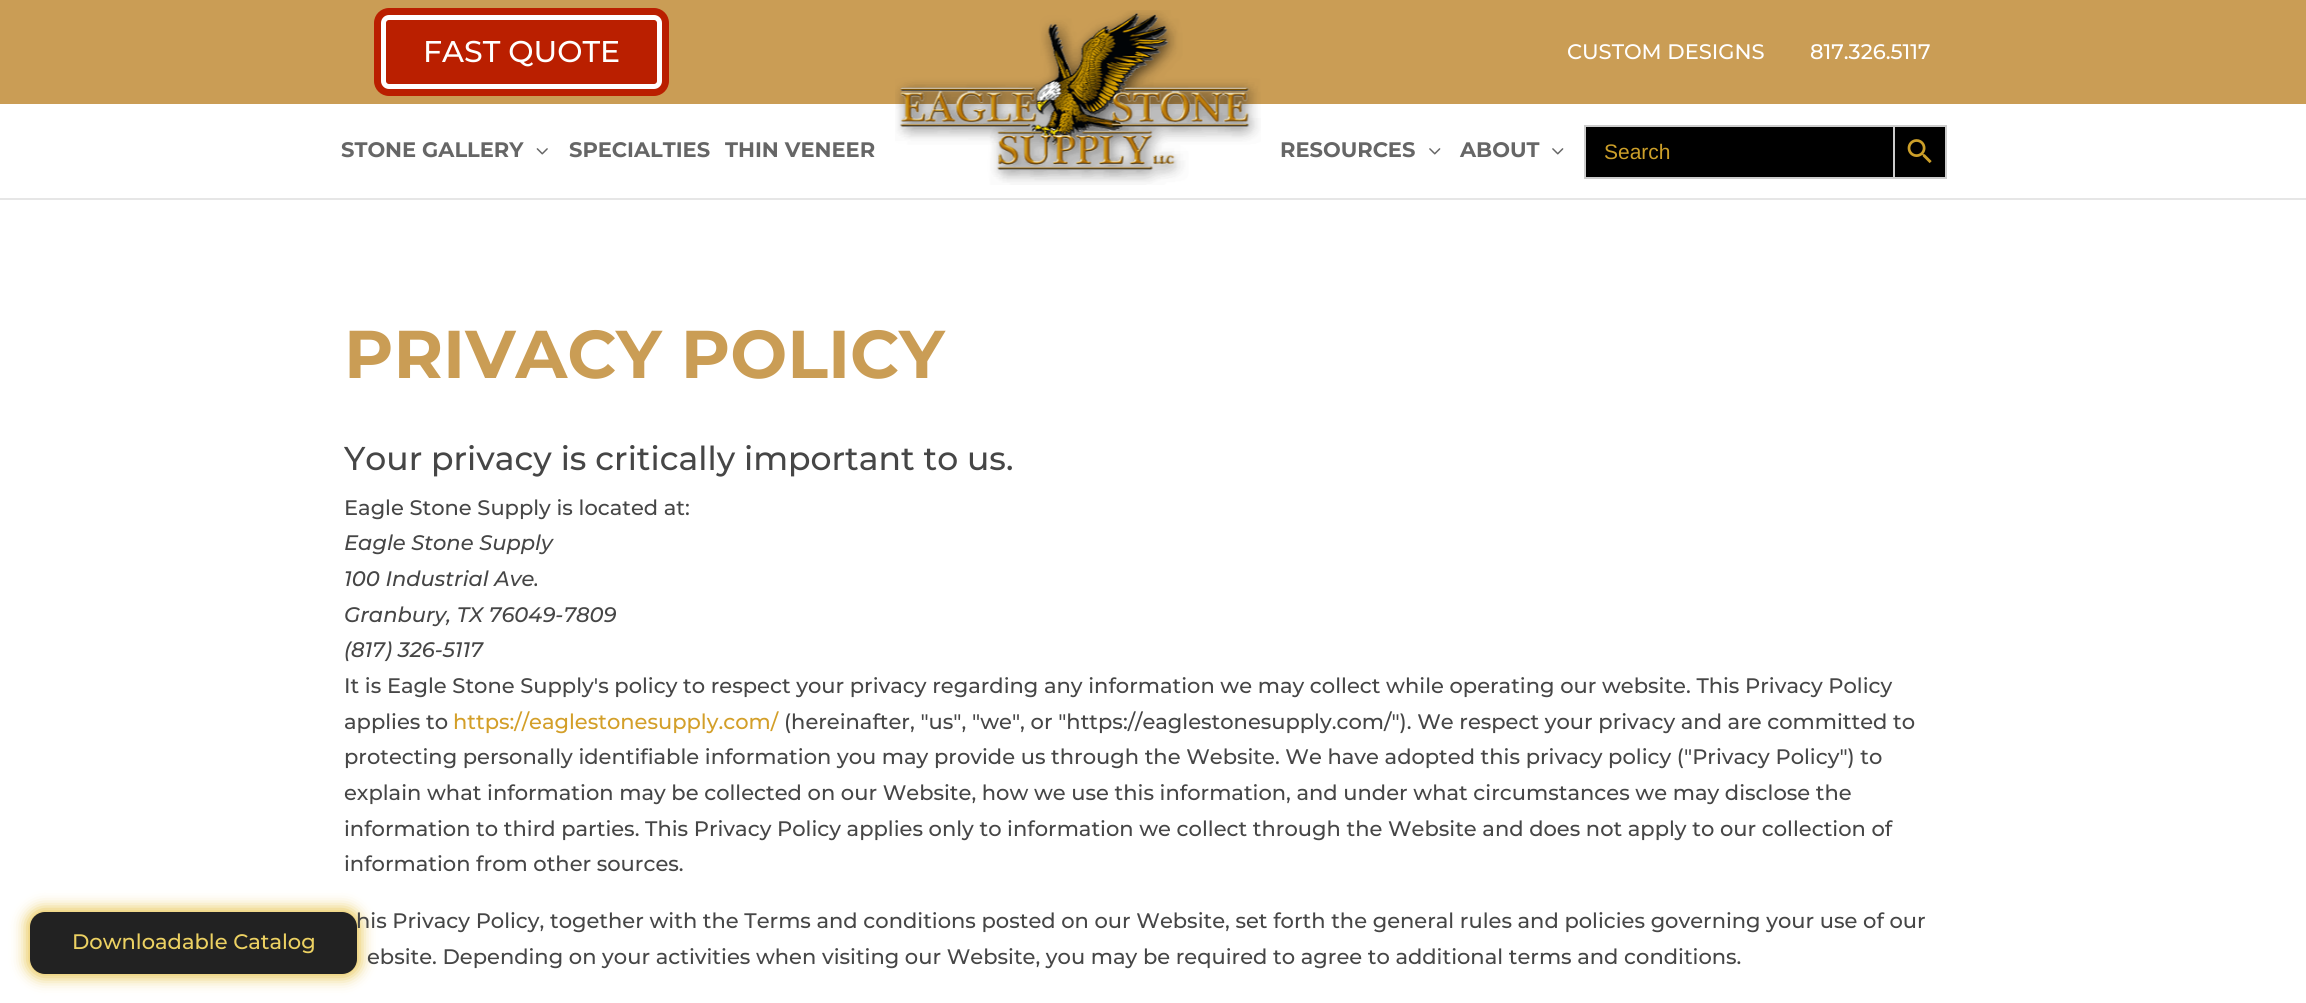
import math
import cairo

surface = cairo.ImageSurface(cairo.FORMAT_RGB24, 2306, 1003)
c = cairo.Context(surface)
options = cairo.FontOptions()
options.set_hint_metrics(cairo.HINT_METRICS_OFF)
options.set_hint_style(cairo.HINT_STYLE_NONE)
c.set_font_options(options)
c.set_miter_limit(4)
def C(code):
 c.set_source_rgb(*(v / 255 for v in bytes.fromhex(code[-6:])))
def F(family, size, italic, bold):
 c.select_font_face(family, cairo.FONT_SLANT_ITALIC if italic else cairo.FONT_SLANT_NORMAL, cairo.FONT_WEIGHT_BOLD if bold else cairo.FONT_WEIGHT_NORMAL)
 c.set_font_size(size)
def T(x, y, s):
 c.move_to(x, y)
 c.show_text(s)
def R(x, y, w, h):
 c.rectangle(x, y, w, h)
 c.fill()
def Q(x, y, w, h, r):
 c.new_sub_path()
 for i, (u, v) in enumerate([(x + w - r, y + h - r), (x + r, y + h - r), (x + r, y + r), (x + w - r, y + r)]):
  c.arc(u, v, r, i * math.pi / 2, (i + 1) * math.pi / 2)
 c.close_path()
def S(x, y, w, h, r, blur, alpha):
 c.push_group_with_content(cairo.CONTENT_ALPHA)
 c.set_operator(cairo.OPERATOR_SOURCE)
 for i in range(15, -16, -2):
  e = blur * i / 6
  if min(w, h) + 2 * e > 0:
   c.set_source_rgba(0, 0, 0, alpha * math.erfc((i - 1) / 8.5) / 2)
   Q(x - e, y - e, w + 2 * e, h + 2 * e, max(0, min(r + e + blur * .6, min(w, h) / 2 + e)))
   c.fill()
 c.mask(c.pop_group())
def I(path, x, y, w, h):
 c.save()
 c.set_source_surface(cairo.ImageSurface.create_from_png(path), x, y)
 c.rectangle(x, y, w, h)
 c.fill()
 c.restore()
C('ffffff')
c.paint()
C('e7c245')
S(27,909,333,68,15,7.5,1)
C('222222')
Q(30,912,327,62,15)
c.fill()
F('Montserrat Medium',21,0,0)
C('ecd162')
T(72,949,'Downloadable Catalog')
C('e6e6e6')
R(0,198,2306,2)
C('ca9d55')
R(0,0,2306,104)
C('ba1f00')
Q(374,8,295,88,15)
c.fill()
Q(383.5,17.5,276,69,5.5)
C('ffffff')
c.set_line_width(5)
c.stroke()
F('Montserrat Medium',30,0,0)
T(423,62,'FAST QUOTE')
F('Montserrat Medium',21,0,0)
T(1567,59,'CUSTOM DESIGNS')
T(1810,59,'817.326.5117')
F('Montserrat',21,0,1)
C('666666')
T(341,157,'STONE GALLERY')
I('1.png',536,148,12,7)
T(569,157,'SPECIALTIES')
T(725,157,'THIN VENEER')
I('2.png',895,10,366,175)
T(1280,157,'RESOURCES')
I('3.png',1429,148,12,7)
T(1460,157,'ABOUT')
I('3.png',1552,148,12,7)
C('000000')
R(1586,127,307,50)
C('cccccc')
R(1584,125,309,2)
R(1584,177,309,2)
R(1584,125,2,54)
F('Liberation Sans',21,0,0)
C('cc9f29')
T(1604,159,'Search')
C('000000')
c.rectangle(1894,126,52,52)
c.fill_preserve()
C('cccccc')
c.set_line_width(2)
c.stroke()
I('4.png',1907,139,25,25)
F('Montserrat',67.5,0,1)
C('ca9d55')
T(344,378,'PRIVACY POLICY')
F('Montserrat Medium',33,0,0)
C('464646')
T(344,470,'Your privacy is critically important to us.')
F('Montserrat Medium',21,0,0)
T(344,515,'Eagle Stone Supply is located at:')
F('Montserrat Medium',21,1,0)
T(344,550,'Eagle Stone Supply')
T(344,586,'100 Industrial Ave.')
T(344,622,'Granbury, TX 76049-7809')
T(344,657,'(817) 326-5117')
F('Montserrat Medium',21,0,0)
T(344,693,'It is Eagle Stone Supply\'s policy to respect your privacy regarding any information we may collect while operating our website. This Privacy Policy')
T(344,729,'applies to')
C('d39f29')
T(453,729,'https://eaglestonesupply.com/')
C('464646')
T(784,729,'(hereinafter, "us", "we", or "https://eaglestonesupply.com/"). We respect your privacy and are committed to')
T(344,764,'protecting personally identifiable information you may provide us through the Website. We have adopted this privacy policy ("Privacy Policy") to')
T(344,800,'explain what information may be collected on our Website, how we use this information, and under what circumstances we may disclose the')
T(344,836,'information to third parties. This Privacy Policy applies only to information we collect through the Website and does not apply to our collection of')
T(344,871,'information from other sources.')
T(356,928,'his Privacy Policy, together with the Terms and conditions posted on our Website, set forth the general rules and policies governing your use of our')
T(367,964,'ebsite. Depending on your activities when visiting our Website, you may be required to agree to additional terms and conditions.')
surface.write_to_png('o.png')
